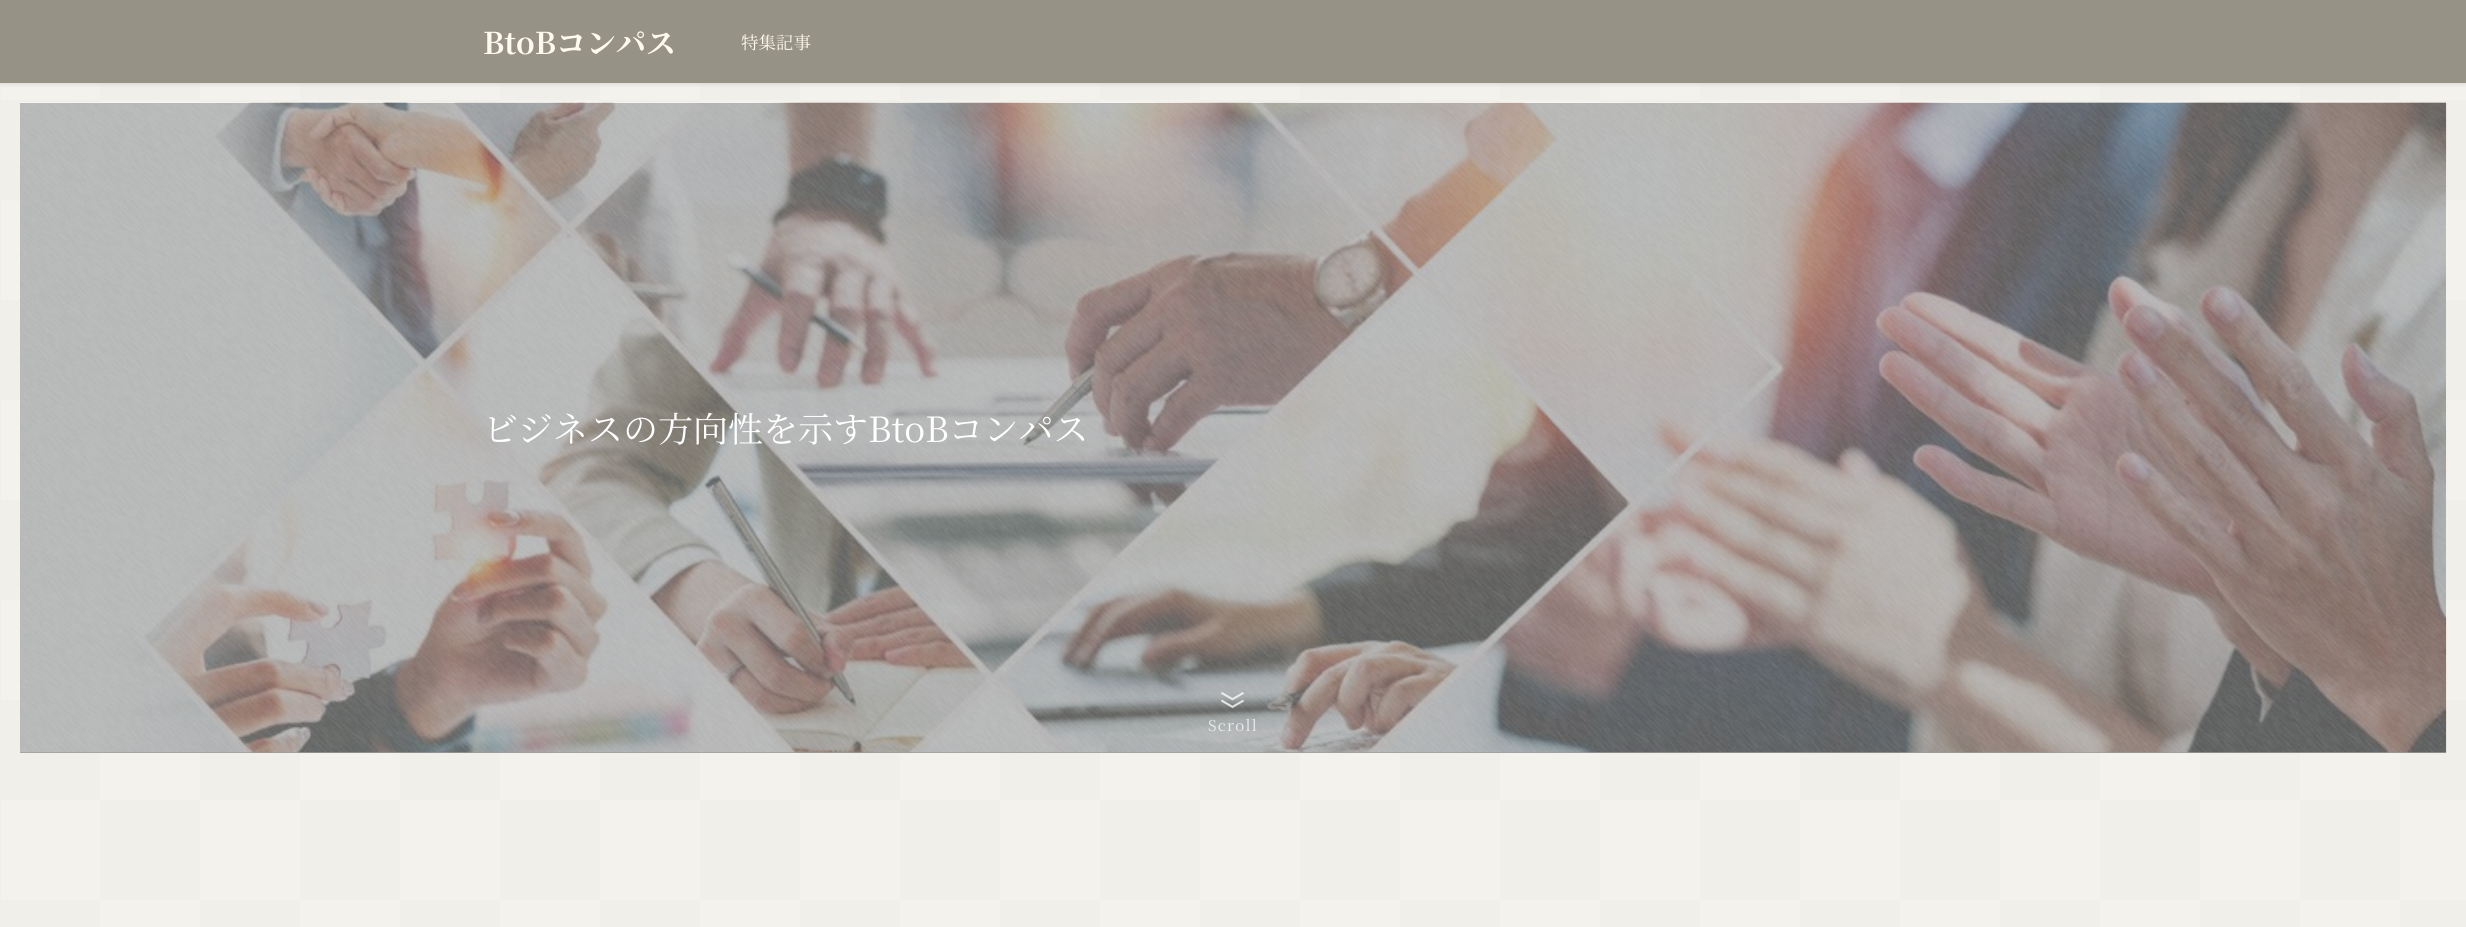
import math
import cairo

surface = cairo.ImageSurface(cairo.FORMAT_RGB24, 2466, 927)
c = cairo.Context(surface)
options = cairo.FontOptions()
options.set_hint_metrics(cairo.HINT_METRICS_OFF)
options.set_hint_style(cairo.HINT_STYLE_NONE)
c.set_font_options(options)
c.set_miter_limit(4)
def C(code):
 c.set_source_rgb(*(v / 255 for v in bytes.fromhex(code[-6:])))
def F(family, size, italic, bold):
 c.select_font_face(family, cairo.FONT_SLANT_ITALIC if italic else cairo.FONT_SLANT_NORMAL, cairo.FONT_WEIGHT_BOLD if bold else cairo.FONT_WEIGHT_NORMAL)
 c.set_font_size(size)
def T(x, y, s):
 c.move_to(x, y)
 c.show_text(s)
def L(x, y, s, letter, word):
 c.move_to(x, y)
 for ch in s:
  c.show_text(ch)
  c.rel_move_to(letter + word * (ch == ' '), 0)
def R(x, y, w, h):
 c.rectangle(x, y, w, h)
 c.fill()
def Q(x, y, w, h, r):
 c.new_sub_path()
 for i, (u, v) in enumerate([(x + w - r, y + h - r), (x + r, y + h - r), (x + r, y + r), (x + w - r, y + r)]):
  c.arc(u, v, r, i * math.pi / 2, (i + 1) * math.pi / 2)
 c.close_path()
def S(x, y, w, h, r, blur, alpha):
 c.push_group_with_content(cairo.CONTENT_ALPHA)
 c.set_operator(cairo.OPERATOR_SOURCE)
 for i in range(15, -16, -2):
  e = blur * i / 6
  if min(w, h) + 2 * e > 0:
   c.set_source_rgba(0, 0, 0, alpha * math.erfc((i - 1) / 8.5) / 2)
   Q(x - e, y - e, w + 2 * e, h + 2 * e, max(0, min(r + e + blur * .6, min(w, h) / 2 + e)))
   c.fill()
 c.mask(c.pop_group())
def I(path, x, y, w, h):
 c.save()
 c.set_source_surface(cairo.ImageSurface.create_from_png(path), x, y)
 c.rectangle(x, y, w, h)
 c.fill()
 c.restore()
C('f1efe9')
c.paint()
I('1.png',1,83,2465,844)
C('000000')
S(0,1,2466,83,0,2.5,.12)
C('969285')
R(0,0,2466,83)
F('Noto Serif JP',30,0,1)
C('fff9ef')
T(483,54,'BtoBコンパス')
F('Noto Serif JP',17.5,0,0)
T(741,49,'特集記事')
I('2.png',20,102,2427,651)
c.set_source_rgba(0.31,0.31,0.31,0.5)
R(20,103,2426,650)
I('3.png',20,102,2426,651)
F('Noto Serif JP',35,0,0)
C('ffffff')
T(483,442,'ビジネスの方向性を示すBtoBコンパス')
I('4.png',1221,692,23,16)
F('Noto Serif JP',15,0,0)
C('ebecec')
L(1208,731,'Scroll',1.25,0)
surface.write_to_png('o.png')
